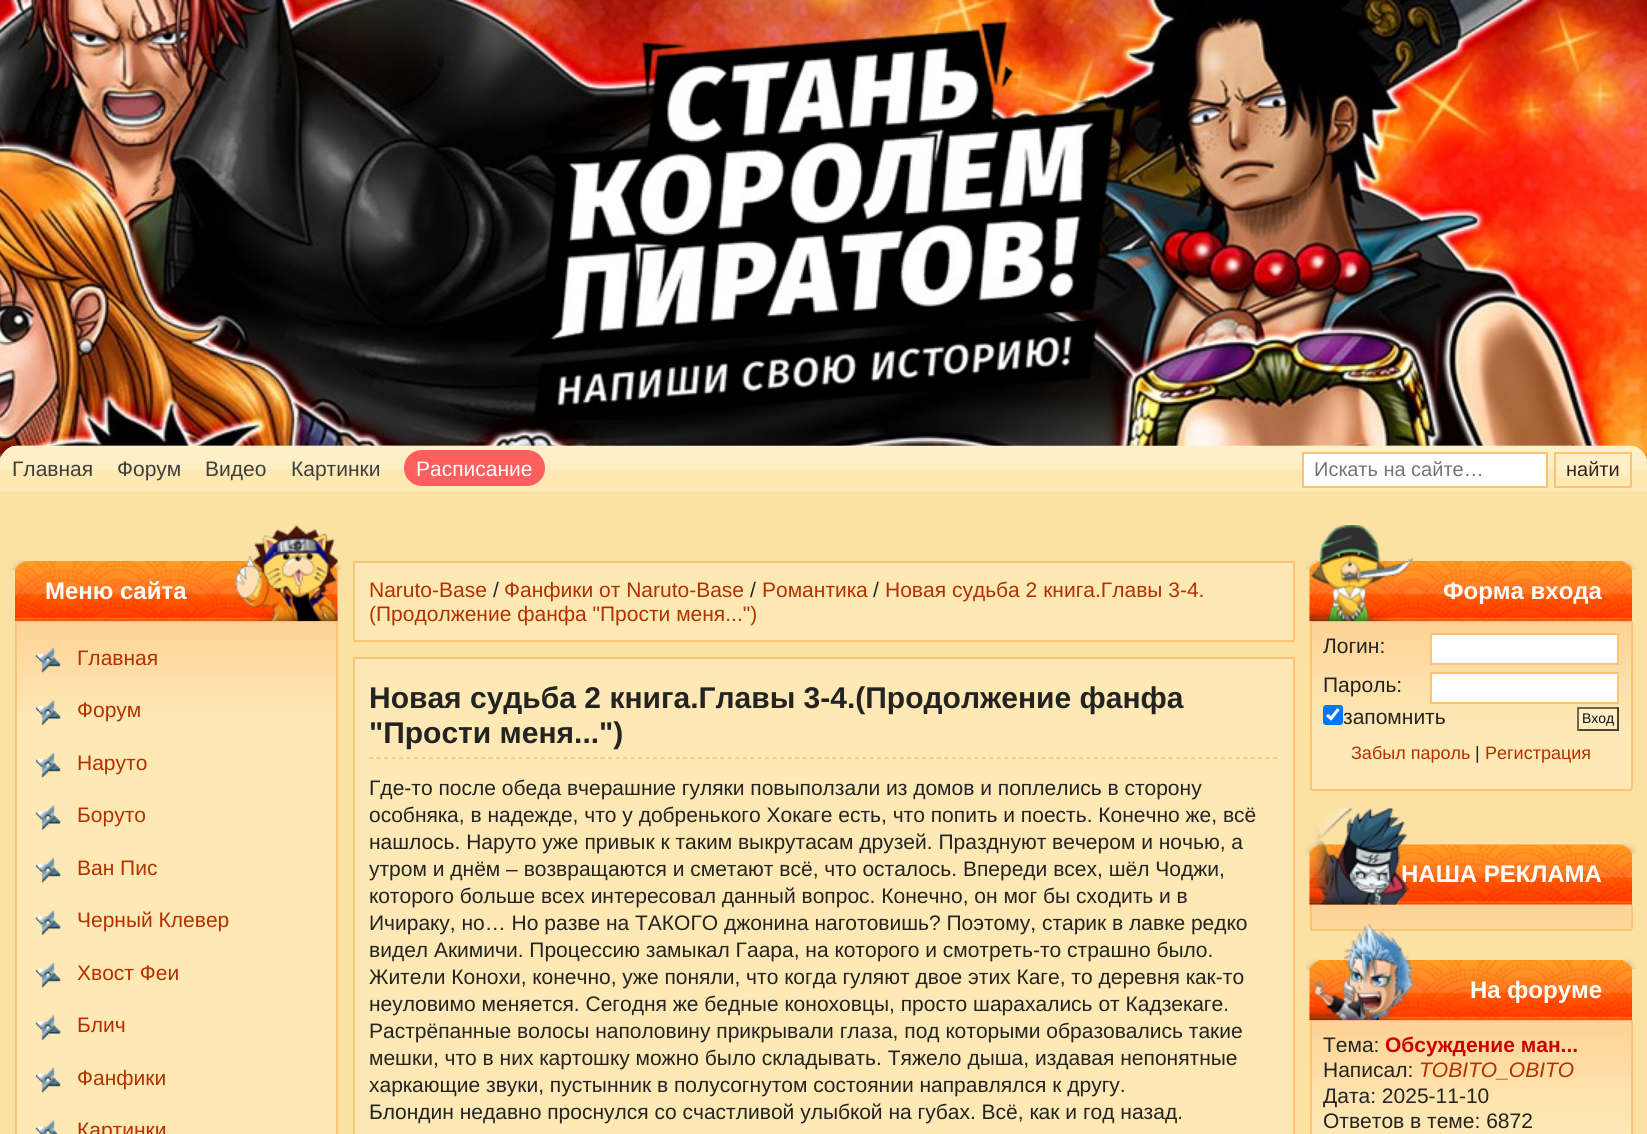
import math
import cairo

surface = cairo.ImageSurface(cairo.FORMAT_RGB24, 1647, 1134)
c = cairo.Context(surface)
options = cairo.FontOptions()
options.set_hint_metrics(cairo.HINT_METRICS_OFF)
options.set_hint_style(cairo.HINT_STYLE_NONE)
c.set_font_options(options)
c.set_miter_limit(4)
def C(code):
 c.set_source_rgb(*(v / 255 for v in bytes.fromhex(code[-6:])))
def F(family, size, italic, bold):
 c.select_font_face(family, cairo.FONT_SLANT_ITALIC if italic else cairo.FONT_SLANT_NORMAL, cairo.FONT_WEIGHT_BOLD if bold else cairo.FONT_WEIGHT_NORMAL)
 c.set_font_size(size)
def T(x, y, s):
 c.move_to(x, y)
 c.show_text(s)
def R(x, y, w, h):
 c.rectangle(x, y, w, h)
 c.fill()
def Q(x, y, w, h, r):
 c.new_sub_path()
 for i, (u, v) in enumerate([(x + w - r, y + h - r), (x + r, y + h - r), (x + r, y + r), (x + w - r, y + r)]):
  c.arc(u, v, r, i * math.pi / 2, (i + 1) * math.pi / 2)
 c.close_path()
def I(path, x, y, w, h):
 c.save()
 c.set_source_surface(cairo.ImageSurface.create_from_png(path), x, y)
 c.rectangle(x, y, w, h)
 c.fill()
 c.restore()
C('ffffff')
c.paint()
I('1.png',0,0,1647,464)
C('fbe1a3')
c.new_path()
c.move_to(18,446)
c.line_to(1629,446)
c.curve_to(1639,446,1647,454,1647,464)
c.line_to(1647,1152)
c.line_to(0,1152)
c.line_to(0,464)
c.curve_to(0,454,8,446,18,446)
c.close_path()
c.fill()
I('2.png',0,445,1647,47)
I('3.png',0,445,569,18)
F('Liberation Sans',21,0,0)
C('3f3f3f')
T(12,476,'Главная')
T(117,476,'Форум')
T(205,476,'Видео')
T(291,476,'Картинки')
C('ff5e5e')
Q(404,450,141,36,18)
c.fill()
C('ffffff')
T(416,476,'Расписание')
I('4.png',1295,445,352,18)
c.rectangle(1303,453,244,34)
c.fill_preserve()
C('ffc375')
c.stroke()
F('Liberation Sans',20,0,0)
C('757575')
T(1314,476,'Искать на сайте…')
I('5.png',1556,454,74,32)
c.rectangle(1555,453,76,34)
C('ffc375')
c.stroke()
C('35221c')
T(1566,476,'найти')
C('fee8b4')
R(17,568,321,566)
I('6.png',15,561,323,150)
F('Liberation Sans',24,0,1)
C('ffffff')
T(45,599,'Меню сайта')
C('ffc375')
R(336,621,2,513)
R(15,621,2,513)
I('7.png',10,560,14,10)
I('9.png',332,560,10,10)
I('8.png',235,525,103,96)
I('10.png',35,647,26,26)
F('Liberation Sans',21,0,0)
C('b52f00')
T(77,665,'Главная')
I('11.png',35,700,26,25)
T(77,717,'Форум')
I('12.png',35,752,26,26)
T(77,770,'Наруто')
I('13.png',35,805,26,25)
T(77,822,'Боруто')
I('12.png',35,857,26,26)
T(77,875,'Ван Пис')
I('13.png',35,910,26,25)
T(77,927,'Черный Клевер')
I('12.png',35,962,26,26)
T(77,980,'Хвост Феи')
I('13.png',35,1015,26,25)
T(77,1032,'Блич')
I('12.png',35,1067,26,26)
T(77,1085,'Фанфики')
I('14.png',35,1120,24,14)
T(77,1137,'Картинки')
C('fee8b4')
c.rectangle(354,562,940,79)
c.fill_preserve()
C('ffc375')
c.stroke()
C('b52f00')
T(369,597,'Naruto-Base')
C('232323')
T(493,597,'/')
C('b52f00')
T(504,597,'Фанфики от Naruto-Base')
C('232323')
T(750,597,'/')
C('b52f00')
T(762,597,'Романтика')
C('232323')
T(873,597,'/')
C('b52f00')
T(885,597,'Новая судьба 2 книга.Главы 3-4.')
T(369,621,'(Продолжение фанфа "Прости меня...")')
C('fee8b4')
c.rectangle(354,658,940,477)
c.fill_preserve()
C('ffc375')
c.stroke()
c.new_path()
c.move_to(369,758)
c.line_to(1278,758)
c.set_line_width(1.5)
c.set_dash([4.5,2.97])
c.stroke()
F('Liberation Sans',30,0,1)
C('232323')
T(369,708,'Новая судьба 2 книга.Главы 3-4.(Продолжение фанфа')
T(369,743,'"Прости меня...")')
F('Liberation Sans',21,0,0)
T(369,795,'Где-то после обеда вчерашние гуляки повыползали из домов и поплелись в сторону')
T(369,822,'особняка, в надежде, что у добренького Хокаге есть, что попить и поесть. Конечно же, всё')
T(369,849,'нашлось. Наруто уже привык к таким выкрутасам друзей. Празднуют вечером и ночью, а')
T(369,876,'утром и днём – возвращаются и сметают всё, что осталось. Впереди всех, шёл Чоджи,')
T(369,903,'которого больше всех интересовал данный вопрос. Конечно, он мог бы сходить и в')
T(369,930,'Ичираку, но… Но разве на ТАКОГО джонина наготовишь? Поэтому, старик в лавке редко')
T(369,957,'видел Акимичи. Процессию замыкал Гаара, на которого и смотреть-то страшно было.')
T(369,984,'Жители Конохи, конечно, уже поняли, что когда гуляют двое этих Каге, то деревня как-то')
T(369,1011,'неуловимо меняется. Сегодня же бедные коноховцы, просто шарахались от Кадзекаге.')
T(369,1038,'Растрёпанные волосы наполовину прикрывали глаза, под которыми образовались такие')
T(369,1065,'мешки, что в них картошку можно было складывать. Тяжело дыша, издавая непонятные')
T(369,1092,'харкающие звуки, пустынник в полусогнутом состоянии направлялся к другу.')
T(369,1119,'Блондин недавно проснулся со счастливой улыбкой на губах. Всё, как и год назад.')
C('fee8b4')
R(1312,738,319,51)
I('15.png',1309,561,323,177)
C('ffc375')
R(1310,789,322,2)
I('17.png',1305,560,14,10)
I('16.png',1309,525,104,96)
I('18.png',1623,560,14,10)
F('Liberation Sans',24,0,1)
C('ffffff')
T(1443,599,'Форма входа')
C('ffc375')
R(1631,621,2,168)
R(1310,621,2,168)
F('Liberation Sans',21,0,0)
C('232323')
T(1323,653,'Логин:')
C('ffffff')
c.rectangle(1431,634,187,30)
c.fill_preserve()
C('ffc375')
c.set_line_width(2)
c.set_dash([])
c.stroke()
C('232323')
T(1323,692,'Пароль:')
C('ffffff')
c.rectangle(1431,673,187,30)
c.fill_preserve()
C('ffc375')
c.stroke()
C('0075ff')
Q(1323,705,20,20,3)
c.fill()
c.new_path()
c.move_to(1327,715)
c.line_to(1331,718.5)
c.line_to(1338.5,709)
C('ffffff')
c.set_line_width(3.1)
c.stroke()
C('232323')
T(1343,724,'запомнить')
I('19.png',1576,708,41,23)
C('756746')
R(1577,707,42,2)
C('4e452f')
R(1617,707,2,24)
R(1577,729,42,2)
C('756746')
R(1577,707,2,24)
F('Liberation Sans',14,0,0)
C('131313')
T(1582,723,'Вход')
F('Liberation Sans',18,0,0)
C('b52f00')
T(1351,759,'Забыл пароль')
C('232323')
T(1475,759,'|')
C('b52f00')
T(1485,759,'Регистрация')
I('20.png',1309,844,323,86)
C('ffc375')
R(1310,929,322,2)
I('22.png',1305,843,14,11)
F('Liberation Sans',24,0,1)
C('ffffff')
T(1401,882,'НАША РЕКЛАМА')
I('21.png',1309,808,100,97)
I('23.png',1623,843,14,11)
C('ffc375')
R(1631,905,2,24)
R(1310,905,2,24)
I('24.png',1309,960,323,174)
I('26.png',1305,959,14,10)
I('25.png',1309,924,104,96)
I('27.png',1623,959,14,10)
C('ffffff')
T(1470,998,'На форуме')
C('ffc375')
R(1631,1020,2,114)
R(1310,1020,2,114)
F('Liberation Sans',21,0,0)
C('232323')
T(1323,1052,'Тема:')
F('Liberation Sans',21,0,1)
C('cc0000')
T(1385,1052,'Обсуждение ман...')
F('Liberation Sans',21,0,0)
C('232323')
T(1323,1077,'Написал:')
F('Liberation Sans',21,1,0)
C('b52f00')
T(1419,1077,'ТОBITO_OBITO')
F('Liberation Sans',21,0,0)
C('232323')
T(1323,1103,'Дата: 2025-11-10')
T(1323,1128,'Ответов в теме: 6872')
surface.write_to_png('o.png')
